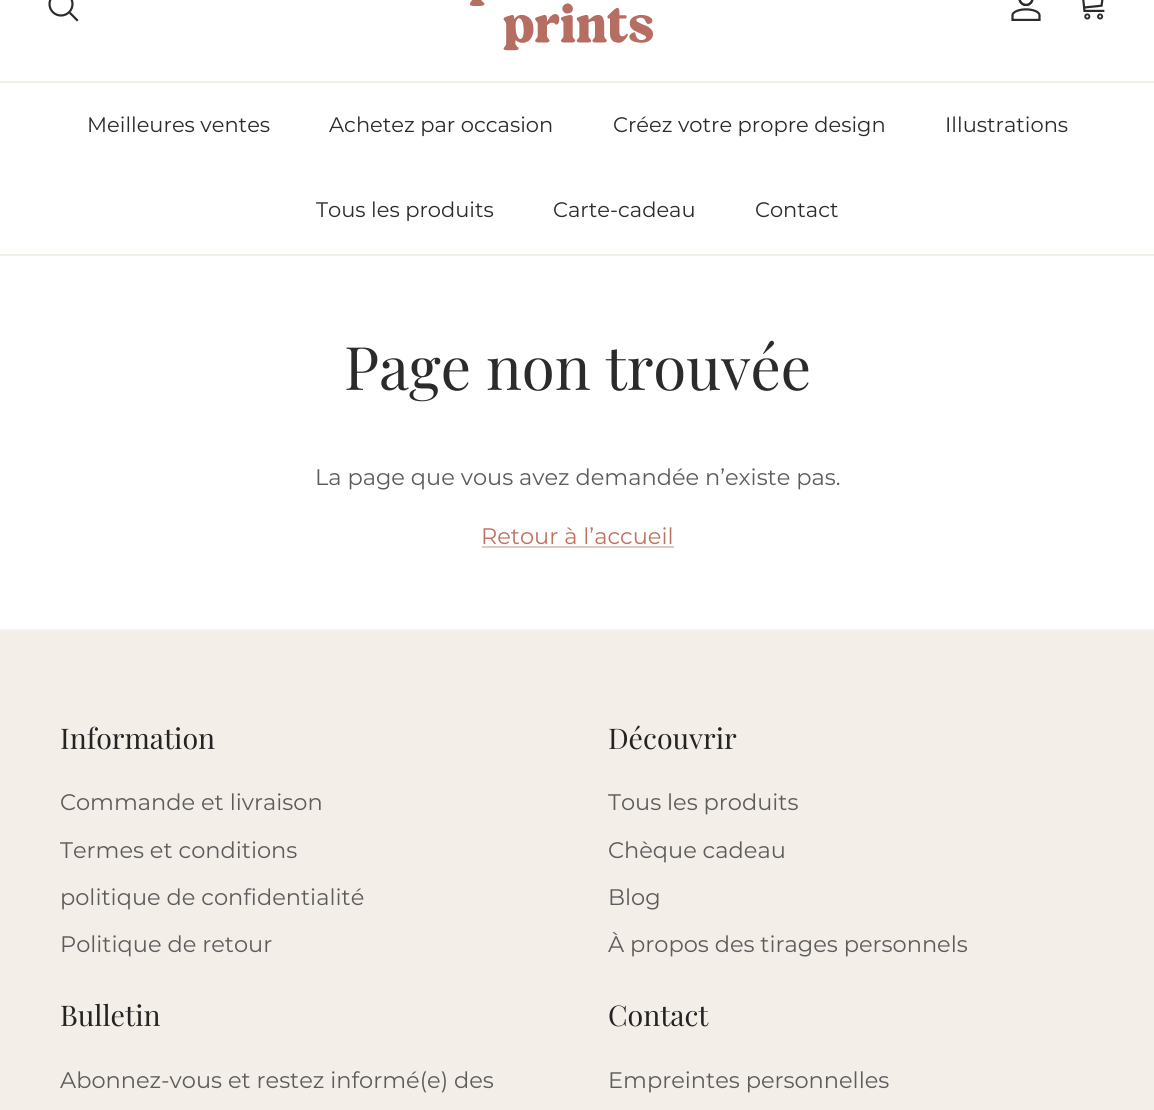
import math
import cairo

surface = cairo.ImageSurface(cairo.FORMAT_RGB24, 1154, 1110)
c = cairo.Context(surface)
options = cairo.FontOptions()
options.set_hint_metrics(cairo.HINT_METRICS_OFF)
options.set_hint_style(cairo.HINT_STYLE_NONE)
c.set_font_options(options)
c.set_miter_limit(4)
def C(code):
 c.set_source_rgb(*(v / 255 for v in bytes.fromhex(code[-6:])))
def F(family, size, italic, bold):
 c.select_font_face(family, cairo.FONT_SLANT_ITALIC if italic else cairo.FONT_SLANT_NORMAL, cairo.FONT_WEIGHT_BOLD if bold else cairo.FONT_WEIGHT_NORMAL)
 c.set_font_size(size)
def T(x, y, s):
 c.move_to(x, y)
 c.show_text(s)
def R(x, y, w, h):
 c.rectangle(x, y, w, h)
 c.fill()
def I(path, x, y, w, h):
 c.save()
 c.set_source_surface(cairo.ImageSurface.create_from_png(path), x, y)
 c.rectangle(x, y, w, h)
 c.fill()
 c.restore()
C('ffffff')
c.paint()
C('f4eee9')
R(0,81,1154,2)
c.arc(61,4,11.5,0,2 * math.pi)
C('2b2b2b')
c.set_line_width(2.2)
c.stroke()
c.new_path()
c.move_to(70.5,13.5)
c.line_to(77,20)
c.set_line_cap(cairo.LINE_CAP_SQUARE)
c.stroke()
I('1.png',470,0,183,51)
I('2.png',1011,0,30,21)
I('3.png',1082,0,23,20)
C('f4eee9')
R(0,254,1154,2)
F('Montserrat',21,0,0)
C('2b2b2b')
T(87,132,'Meilleures ventes')
T(329,132,'Achetez par occasion')
T(613,132,'Créez votre propre design')
T(945,132,'Illustrations')
T(316,217,'Tous les produits')
T(553,217,'Carte-cadeau')
T(755,217,'Contact')
F('Playfair Display',60,0,0)
T(344,390,'Page non trouvée')
F('Montserrat',22.5,0,0)
C('5c5c5c')
T(315,485,'La page que vous avez demandée n’existe pas.')
C('ba7362')
T(481,544,'Retour à l’accueil')
C('e3c7c0')
R(482,546,192,2)
C('f4eee9')
R(0,631,1154,479)
C('f5f4f4')
R(0,629,1154,2)
F('Playfair Display',28.5,0,0)
C('232323')
T(60,749,'Information')
F('Montserrat',22.5,0,0)
C('5c5c5c')
T(60,810,'Commande et livraison')
T(60,858,'Termes et conditions')
T(60,905,'politique de confidentialité')
T(60,952,'Politique de retour')
F('Playfair Display',28.5,0,0)
C('232323')
T(608,749,'Découvrir')
F('Montserrat',22.5,0,0)
C('5c5c5c')
T(608,810,'Tous les produits')
T(608,858,'Chèque cadeau')
T(608,905,'Blog')
T(608,952,'À propos des tirages personnels')
F('Playfair Display',28.5,0,0)
C('232323')
T(60,1026,'Bulletin')
F('Montserrat',22.5,0,0)
C('5c5c5c')
T(60,1088,'Abonnez-vous et restez informé(e) des')
F('Playfair Display',28.5,0,0)
C('232323')
T(608,1026,'Contact')
F('Montserrat',22.5,0,0)
C('5c5c5c')
T(608,1088,'Empreintes personnelles')
surface.write_to_png('o.png')
